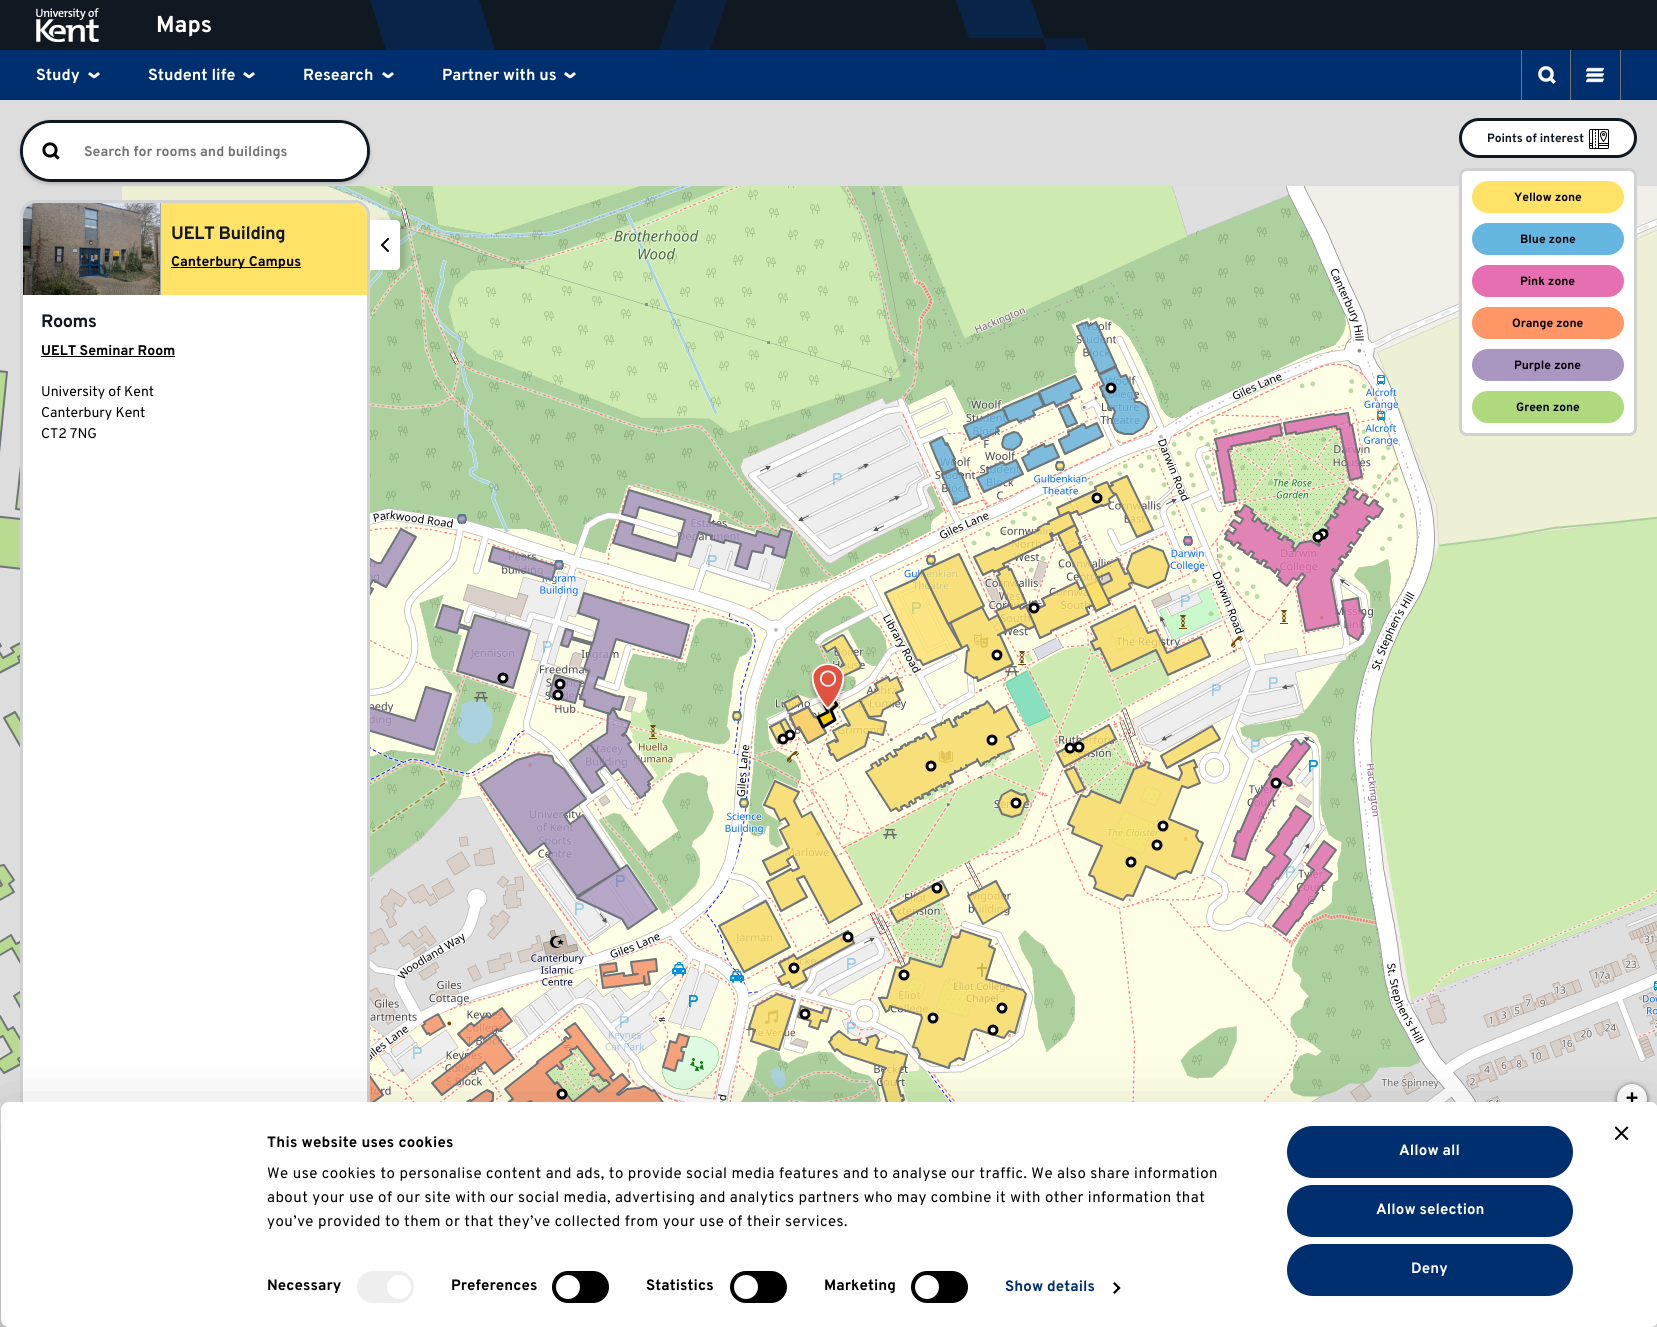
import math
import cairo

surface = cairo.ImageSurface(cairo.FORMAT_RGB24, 1657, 1327)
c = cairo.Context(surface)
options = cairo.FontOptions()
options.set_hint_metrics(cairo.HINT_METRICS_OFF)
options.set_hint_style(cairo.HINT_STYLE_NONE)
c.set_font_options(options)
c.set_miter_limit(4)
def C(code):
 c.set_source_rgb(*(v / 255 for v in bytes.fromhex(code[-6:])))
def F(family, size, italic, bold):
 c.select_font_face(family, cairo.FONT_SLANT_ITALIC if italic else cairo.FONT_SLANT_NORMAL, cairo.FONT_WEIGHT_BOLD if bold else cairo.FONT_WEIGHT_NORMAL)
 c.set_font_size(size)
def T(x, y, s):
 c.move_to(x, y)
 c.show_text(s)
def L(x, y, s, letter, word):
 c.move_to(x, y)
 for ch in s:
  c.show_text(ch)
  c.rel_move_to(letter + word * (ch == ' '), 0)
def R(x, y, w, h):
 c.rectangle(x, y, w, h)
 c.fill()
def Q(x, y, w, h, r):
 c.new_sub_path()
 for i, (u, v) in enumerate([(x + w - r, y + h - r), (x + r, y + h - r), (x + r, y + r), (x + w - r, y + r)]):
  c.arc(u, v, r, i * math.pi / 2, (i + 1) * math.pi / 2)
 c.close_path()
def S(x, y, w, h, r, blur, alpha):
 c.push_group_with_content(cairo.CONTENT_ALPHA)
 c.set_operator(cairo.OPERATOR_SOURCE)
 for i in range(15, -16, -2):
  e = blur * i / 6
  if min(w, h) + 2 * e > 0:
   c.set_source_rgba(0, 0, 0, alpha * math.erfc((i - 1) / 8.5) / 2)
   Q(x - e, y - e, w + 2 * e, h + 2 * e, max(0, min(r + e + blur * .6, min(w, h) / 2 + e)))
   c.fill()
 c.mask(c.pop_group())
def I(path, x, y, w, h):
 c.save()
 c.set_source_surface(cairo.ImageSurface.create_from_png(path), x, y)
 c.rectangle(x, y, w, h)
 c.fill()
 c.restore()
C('dddddd')
c.paint()
C('101921')
R(0,0,1657,50)
C('002f70')
R(0,50,1657,50)
C('0b203c')
c.new_path()
c.move_to(676,0)
c.line_to(727,0)
c.line_to(710,50)
c.line_to(659,50)
c.close_path()
c.fill()
C('082449')
c.new_path()
c.move_to(479,0)
c.line_to(370,0)
c.line_to(386,50)
c.line_to(495,50)
c.close_path()
c.move_to(1031,0)
c.line_to(956,0)
c.line_to(969,38)
c.line_to(1044,38)
c.close_path()
c.fill()
C('0b203c')
c.new_path()
c.move_to(1085,38)
c.line_to(1043,38)
c.line_to(1047,50)
c.line_to(1089,50)
c.close_path()
c.fill()
I('1.png',36,8,63,34)
F('Overpass',23,0,1)
C('ffffff')
T(156,32,'Maps')
F('Overpass',16,0,1)
T(36,80,'Study')
I('2.png',88,72,12,7)
T(148,80,'Student life')
I('2.png',243,72,12,7)
T(303,80,'Research')
I('2.png',382,72,12,7)
T(442,80,'Partner with us')
I('2.png',564,72,12,7)
C('70757a')
R(1570,50,1,50)
R(1521,50,1,50)
I('3.png',1538,66,18,18)
R(1620,50,1,50)
I('4.png',1586,67,18,16)
C('d9d9d9')
c.new_path()
c.move_to(51,119)
c.curve_to(34,119,20,133,20,151)
c.curve_to(20,134,34,120,51,120)
c.line_to(339,120)
c.curve_to(356,120,370,134,370,150)
c.curve_to(370,133,356,119,339,119)
c.close_path()
c.fill()
I('8.png',122,186,256,256)
C('000000')
S(20,122,350,62,31,2,.2)
Q(21.5,121.5,347,59,29.5)
C('101921')
c.set_line_width(3)
c.stroke()
C('ffffff')
Q(24.5,124.5,341,53,26.5)
c.fill_preserve()
c.stroke()
I('5.png',42,142,18,18)
F('Overpass',14,0,1)
C('757575')
T(84,156,'Search for rooms and buildings')
C('ffffff')
Q(1460.5,119.5,175,37,18.5)
c.fill_preserve()
C('101921')
c.stroke()
F('Overpass',12,0,1)
T(1487,142,'Points of interest')
I('6.png',1589,129,20,20)
I('13.png',1402,186,255,256)
C('ffffff')
Q(1460.5,169.5,175,265,6.5)
c.fill_preserve()
C('cfd1d3')
c.stroke()
C('ffe266')
Q(1472,181,152,32,16)
c.fill()
C('000000')
T(1514,201,'Yellow zone')
C('66b6e2')
Q(1472,223,152,32,16)
c.fill()
C('000000')
T(1520,243,'Blue zone')
C('e56fb1')
Q(1472,265,152,32,16)
c.fill()
C('000000')
T(1520,285,'Pink zone')
C('fe9666')
Q(1472,307,152,32,16)
c.fill()
C('000000')
T(1512,327,'Orange zone')
C('a996c1')
Q(1472,349,152,32,16)
c.fill()
C('000000')
T(1514,369,'Purple zone')
C('aed97d')
Q(1472,391,152,32,16)
c.fill()
C('000000')
T(1516,411,'Green zone')
I('9.png',378,186,256,256)
I('10.png',634,186,256,256)
I('11.png',890,186,256,256)
I('12.png',1146,186,256,256)
I('14.png',370,442,8,256)
I('15.png',378,442,256,256)
I('16.png',634,442,256,256)
I('17.png',890,442,256,256)
I('18.png',1146,442,256,256)
I('20.png',370,698,8,256)
I('21.png',378,698,256,256)
I('22.png',634,698,256,256)
I('23.png',890,698,256,256)
I('24.png',1146,698,256,256)
I('26.png',370,954,8,148)
I('27.png',378,954,256,148)
I('28.png',634,954,256,148)
I('29.png',890,954,256,148)
I('30.png',1146,954,256,148)
I('32.png',0,321,1384,781)
Q(21.5,201.5,347,1074,14.5)
C('cfd1d3')
c.stroke()
C('ffffff')
Q(21.5,201.5,347,1074,14.5)
c.fill_preserve()
C('cfd1d3')
c.stroke()
I('7.png',23,203,138,92)
C('ffe266')
c.new_path()
c.move_to(161,203)
c.line_to(354,203)
c.curve_to(361,203,367,209,367,216)
c.line_to(367,295)
c.line_to(161,295)
c.close_path()
c.fill()
F('Overpass',18,0,1)
C('101921')
L(171,239,'UELT Building',-.4,0)
C('000000')
R(171,267,130,1)
F('Overpass',14,0,1)
T(171,266,'Canterbury Campus')
F('Overpass',18,0,1)
C('101921')
L(41,327,'Rooms',-.4,0)
F('Overpass',14,0,1)
C('000000')
T(41,355,'UELT Seminar Room')
R(41,356,134,1)
F('Overpass',14,0,0)
T(41,396,'University of Kent')
T(41,417,'Canterbury Kent')
T(41,438,'CT2 7NG')
C('000000')
S(376,220,30,50,4,2.5,.14)
C('ffffff')
c.new_path()
c.move_to(370,220)
c.line_to(396,220)
c.curve_to(398,220,400,222,400,224)
c.line_to(400,266)
c.curve_to(400,268,398,270,396,270)
c.line_to(370,270)
c.close_path()
c.fill()
c.new_path()
c.move_to(388,251)
c.line_to(382,245)
c.line_to(388,239)
C('000000')
c.set_line_width(2)
c.set_line_cap(cairo.LINE_CAP_ROUND)
c.set_line_join(cairo.LINE_JOIN_ROUND)
c.stroke()
I('19.png',1402,442,255,256)
I('25.png',1402,698,255,256)
I('31.png',1402,954,255,153)
I('33.png',809,663,38,52)
C('000000')
S(1617,1085,30,30,15,2.5,.65)
C('ffffff')
c.arc(1632,1099,15,0,2 * math.pi)
c.fill()
F('DejaVu Sans Mono',20,0,1)
C('000000')
T(1626,1104,'+')
C('f8f8f8')
R(1650,1322,7,5)
c.save()
c.set_fill_rule(cairo.FILL_RULE_EVEN_ODD)
c.new_path()
c.move_to(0,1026)
c.line_to(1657,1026)
c.line_to(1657,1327)
c.line_to(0,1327)
c.close_path()
c.move_to(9,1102)
c.line_to(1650,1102)
c.curve_to(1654.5,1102,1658,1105.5,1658,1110)
c.line_to(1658,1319)
c.curve_to(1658,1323.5,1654.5,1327,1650,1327)
c.line_to(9,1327)
c.curve_to(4.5,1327,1,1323.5,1,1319)
c.line_to(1,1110)
c.curve_to(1,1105.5,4.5,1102,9,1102)
c.close_path()
c.clip()
C('000000')
S(1,1132,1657,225,8,35,.3)
c.restore()
C('ffffff')
Q(1,1102,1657,225,8)
c.fill()
I('34.png',1615,1126,14,14)
F('Overpass',15,0,1)
C('000000')
L(267,1147,'This website uses cookies',.25,0)
F('Overpass',15,0,0)
L(267,1178,'We use cookies to personalise content and ads, to provide social media features and to analyse our traffic. We also share information',.5,0)
L(267,1202,'about your use of our site with our social media, advertising and analytics partners who may combine it with other information that',.5,0)
L(267,1226,'you’ve provided to them or that they’ve collected from your use of their services.',.5,0)
F('Overpass',15,0,1)
L(267,1290,'Necessary',.1,0)
C('eeeeee')
Q(357,1271,57,32,16)
c.fill()
C('ffffff')
c.arc(399,1287,12,0,2 * math.pi)
c.fill()
C('000000')
L(451,1290,'Preferences',.1,0)
Q(552,1271,57,32,16)
c.fill()
C('ffffff')
c.arc(568,1287,12,0,2 * math.pi)
c.fill()
C('000000')
L(646,1290,'Statistics',.1,0)
Q(730,1271,57,32,16)
c.fill()
C('ffffff')
c.arc(746,1287,12,0,2 * math.pi)
c.fill()
C('000000')
L(824,1290,'Marketing',.1,0)
Q(911,1271,57,32,16)
c.fill()
C('ffffff')
c.arc(927,1287,12,0,2 * math.pi)
c.fill()
C('002f70')
L(1005,1291,'Show details',.1,0)
C('000000')
c.new_path()
c.move_to(1114.5,1282)
c.line_to(1120.5,1288)
c.line_to(1119,1289.5)
c.line_to(1113,1283.5)
c.close_path()
c.fill()
c.new_path()
c.move_to(1119,1286.5)
c.line_to(1120.5,1288)
c.line_to(1114.5,1294)
c.line_to(1113,1292.5)
c.close_path()
c.fill()
C('002f70')
Q(1288.5,1127.5,283,49,24.5)
c.fill_preserve()
c.set_line_width(3)
c.set_line_cap(cairo.LINE_CAP_BUTT)
c.set_line_join(cairo.LINE_JOIN_MITER)
c.stroke()
C('ffffff')
L(1399,1155,'Allow all',.1,0)
C('002f70')
Q(1288.5,1186.5,283,49,24.5)
c.fill_preserve()
c.stroke()
C('ffffff')
L(1376,1214,'Allow selection',.1,0)
C('002f70')
Q(1288.5,1245.5,283,49,24.5)
c.fill_preserve()
c.stroke()
C('ffffff')
L(1411,1273,'Deny',.1,0)
surface.write_to_png('o.png')
